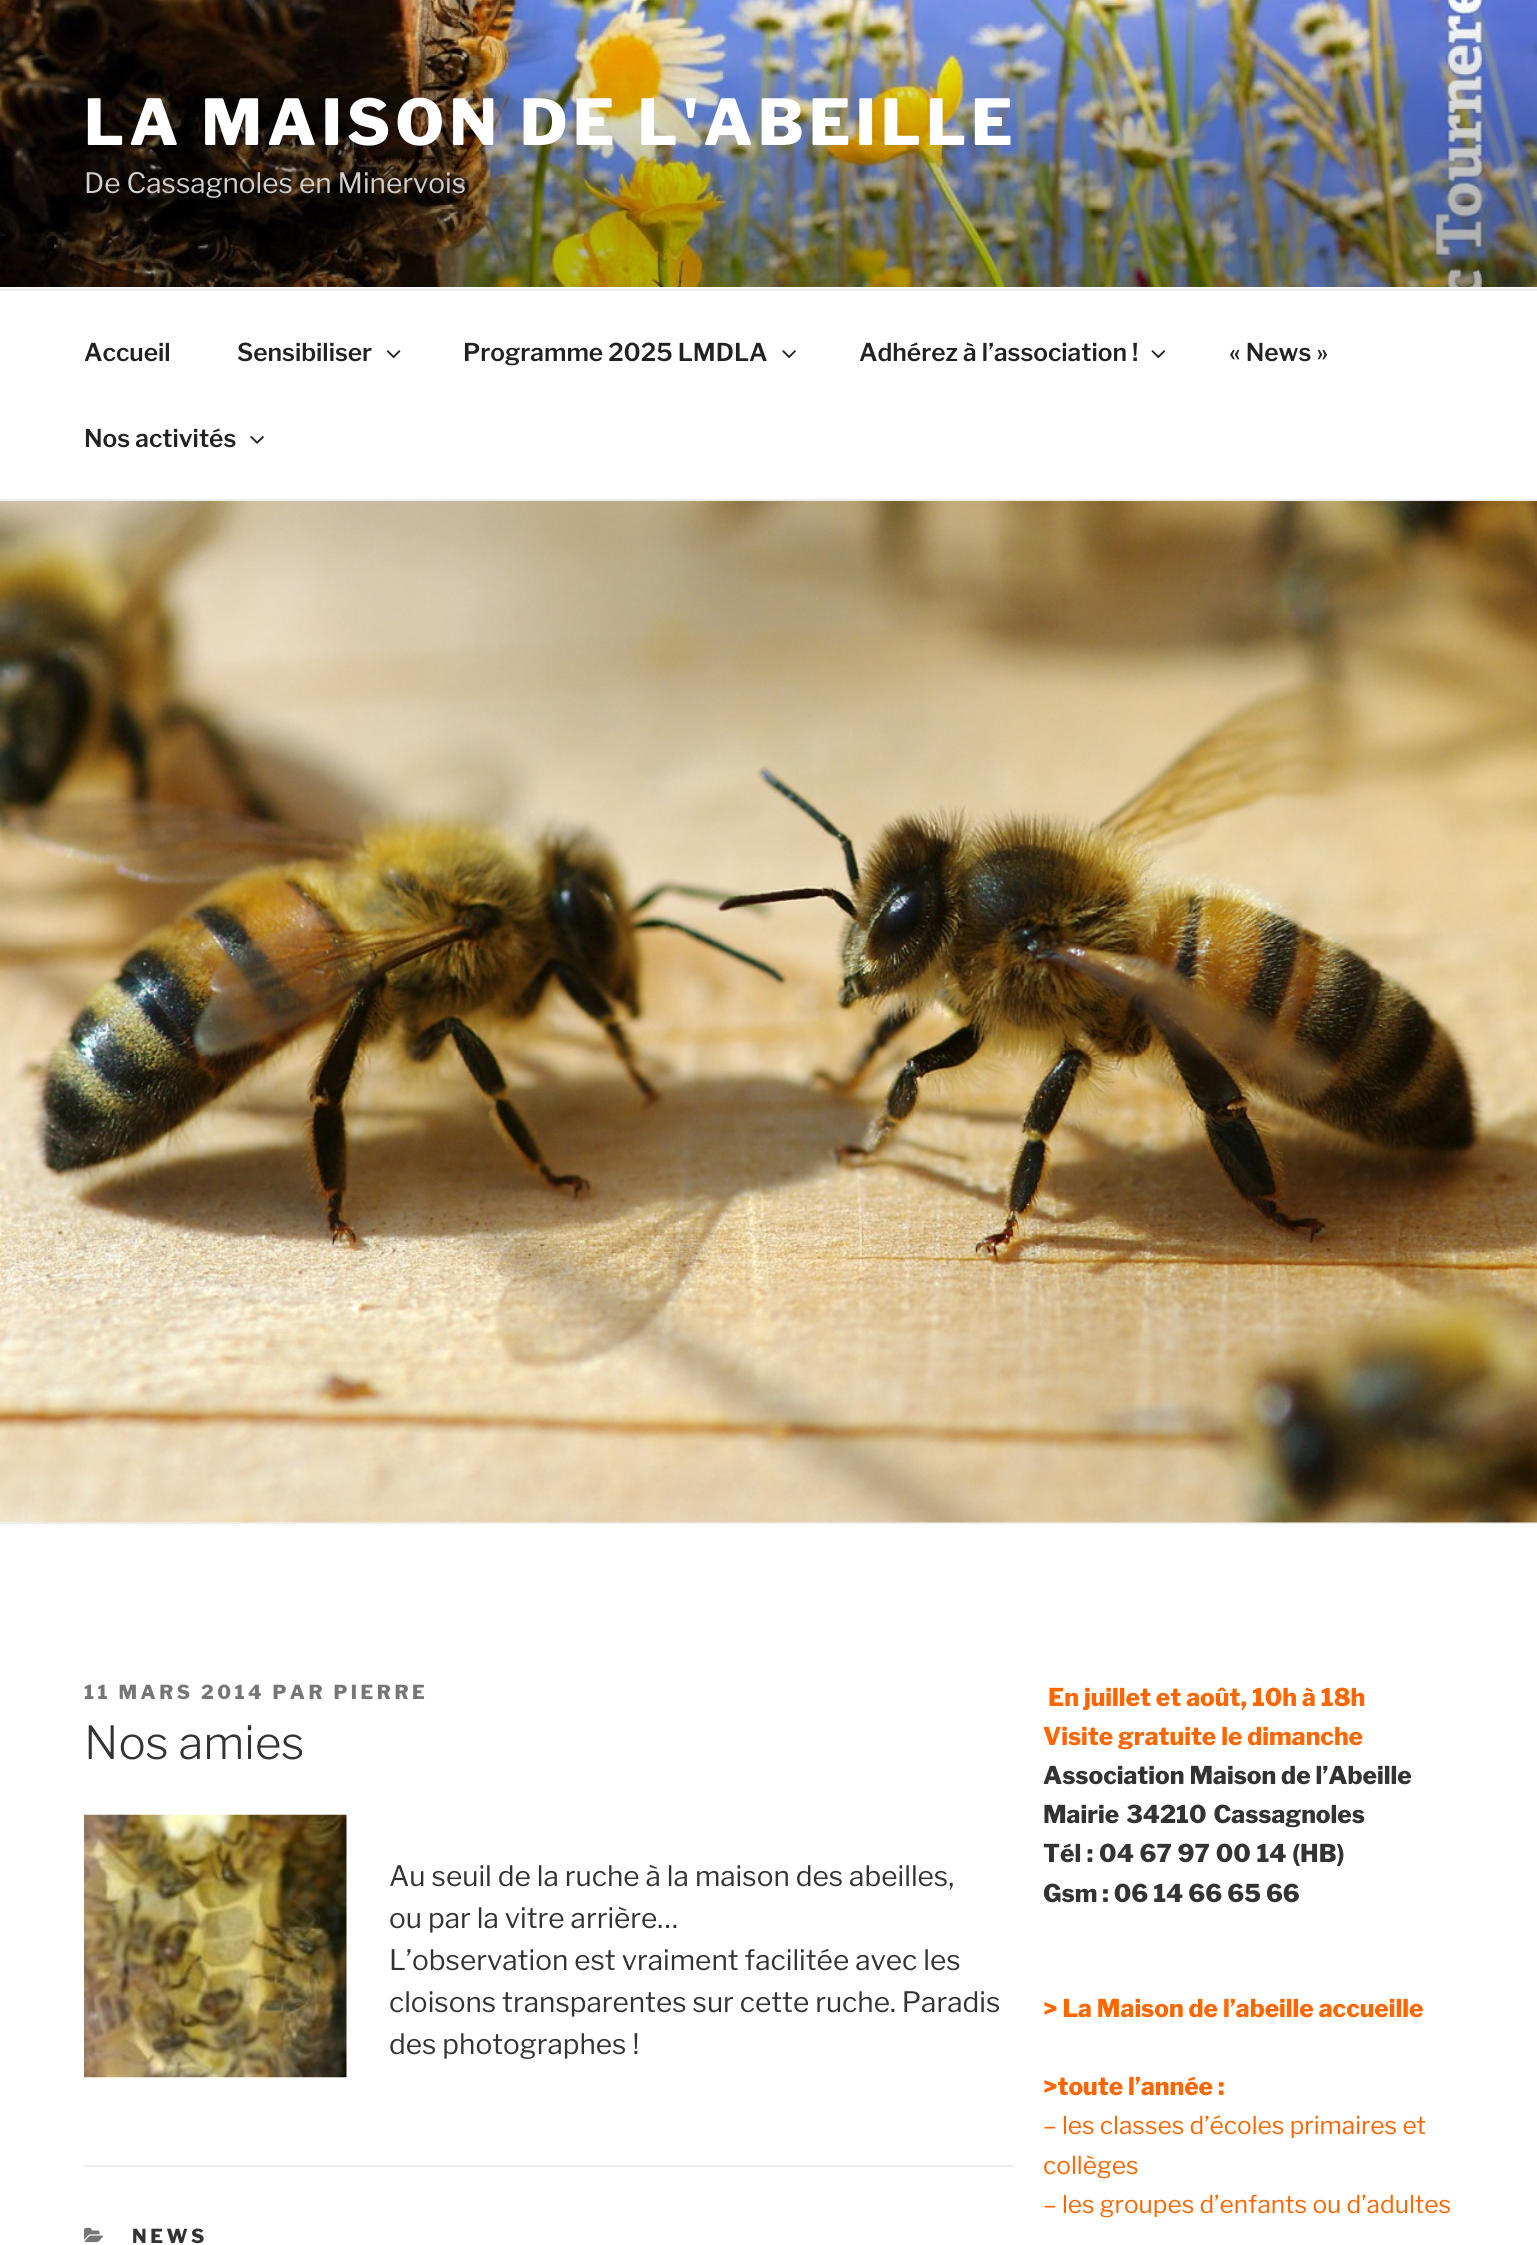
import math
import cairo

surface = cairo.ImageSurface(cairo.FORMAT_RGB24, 1537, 2245)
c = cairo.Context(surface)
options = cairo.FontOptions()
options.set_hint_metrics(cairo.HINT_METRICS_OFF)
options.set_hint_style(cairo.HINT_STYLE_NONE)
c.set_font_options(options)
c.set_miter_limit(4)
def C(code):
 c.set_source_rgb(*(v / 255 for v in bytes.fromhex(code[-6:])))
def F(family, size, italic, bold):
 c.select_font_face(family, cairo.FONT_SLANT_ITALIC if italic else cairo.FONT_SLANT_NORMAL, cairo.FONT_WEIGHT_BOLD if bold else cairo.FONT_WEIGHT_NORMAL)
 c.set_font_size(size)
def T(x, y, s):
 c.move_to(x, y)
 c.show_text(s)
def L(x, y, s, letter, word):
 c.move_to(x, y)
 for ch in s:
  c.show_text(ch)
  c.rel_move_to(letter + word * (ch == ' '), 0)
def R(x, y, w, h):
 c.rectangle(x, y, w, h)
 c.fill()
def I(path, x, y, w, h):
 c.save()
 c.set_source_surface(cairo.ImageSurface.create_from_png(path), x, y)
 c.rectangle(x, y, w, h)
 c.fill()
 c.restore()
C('fafafa')
c.paint()
I('1.png',0,0,1537,287)
F('Libre Franklin Thin',63,0,0)
C('ffffff')
L(84,145,'LA MAISON DE L\'ABEILLE',5,0)
F('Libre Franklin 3 Thin',28,0,0)
C('d1cfce')
T(84,193,'De Cassagnoles en Minervois')
C('ffffff')
R(0,291,1537,208)
C('eeeeee')
R(0,289,1537,2)
R(0,499,1537,2)
F('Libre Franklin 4 Thin',24.5,0,0)
C('222222')
T(84,361,'Accueil')
T(237,361,'Sensibiliser')
I('2.png',386,350,15,9)
T(463,361,'Programme 2025 LMDLA')
I('3.png',782,350,14,9)
T(859,361,'Adhérez à l’association !')
I('4.png',1151,350,15,9)
T(1229,361,'« News »')
T(84,447,'Nos activités')
I('5.png',250,436,14,8)
C('eeeeee')
R(0,1523,1537,1)
I('6.png',0,501,1537,1022)
C('ffffff')
R(0,1524,1537,721)
F('Libre Franklin Thin',19.25,0,0)
C('767676')
L(84,1699,'11 MARS 2014 PAR PIERRE',3.5,0)
F('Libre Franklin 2 Thin',45.5,0,0)
C('333333')
T(84,1759,'Nos amies')
I('7.png',84,1814,263,264)
F('Libre Franklin 3 Thin',28,0,0)
T(389,1886,'Au seuil de la ruche à la maison des abeilles,')
T(389,1928,'ou par la vitre arrière…')
T(389,1970,'L’observation est vraiment facilitée avec les')
T(389,2012,'cloisons transparentes sur cette ruche. Paradis')
T(389,2054,'des photographes !')
C('eeeeee')
R(84,2165,931,2)
I('8.png',84,2227,19,16)
F('Libre Franklin Thin',19.25,0,0)
C('333333')
L(132,2243,'NEWS',3.5,0)
F('Libre Franklin Thin',24.5,0,0)
C('ff6600')
T(1048,1706,'En juillet et août, 10h à 18h')
T(1043,1745,'Visite gratuite le dimanche')
C('333333')
T(1043,1784,'Association Maison de l’Abeille')
L(1043,1823,'Mairie 34210 Cassagnoles',0,2)
L(1043,1862,'Tél : 04 67 97 00 14 (HB)',0,.75)
T(1043,1902,'Gsm : 06 14 66 65 66')
C('ff6600')
T(1043,2017,'> La Maison de l’abeille accueille')
T(1043,2095,'>toute l’année :')
F('Libre Franklin 3 Thin',24.5,0,0)
T(1043,2134,'– les classes d’écoles primaires et')
T(1043,2174,'collèges')
T(1043,2213,'– les groupes d’enfants ou d’adultes')
surface.write_to_png('o.png')
